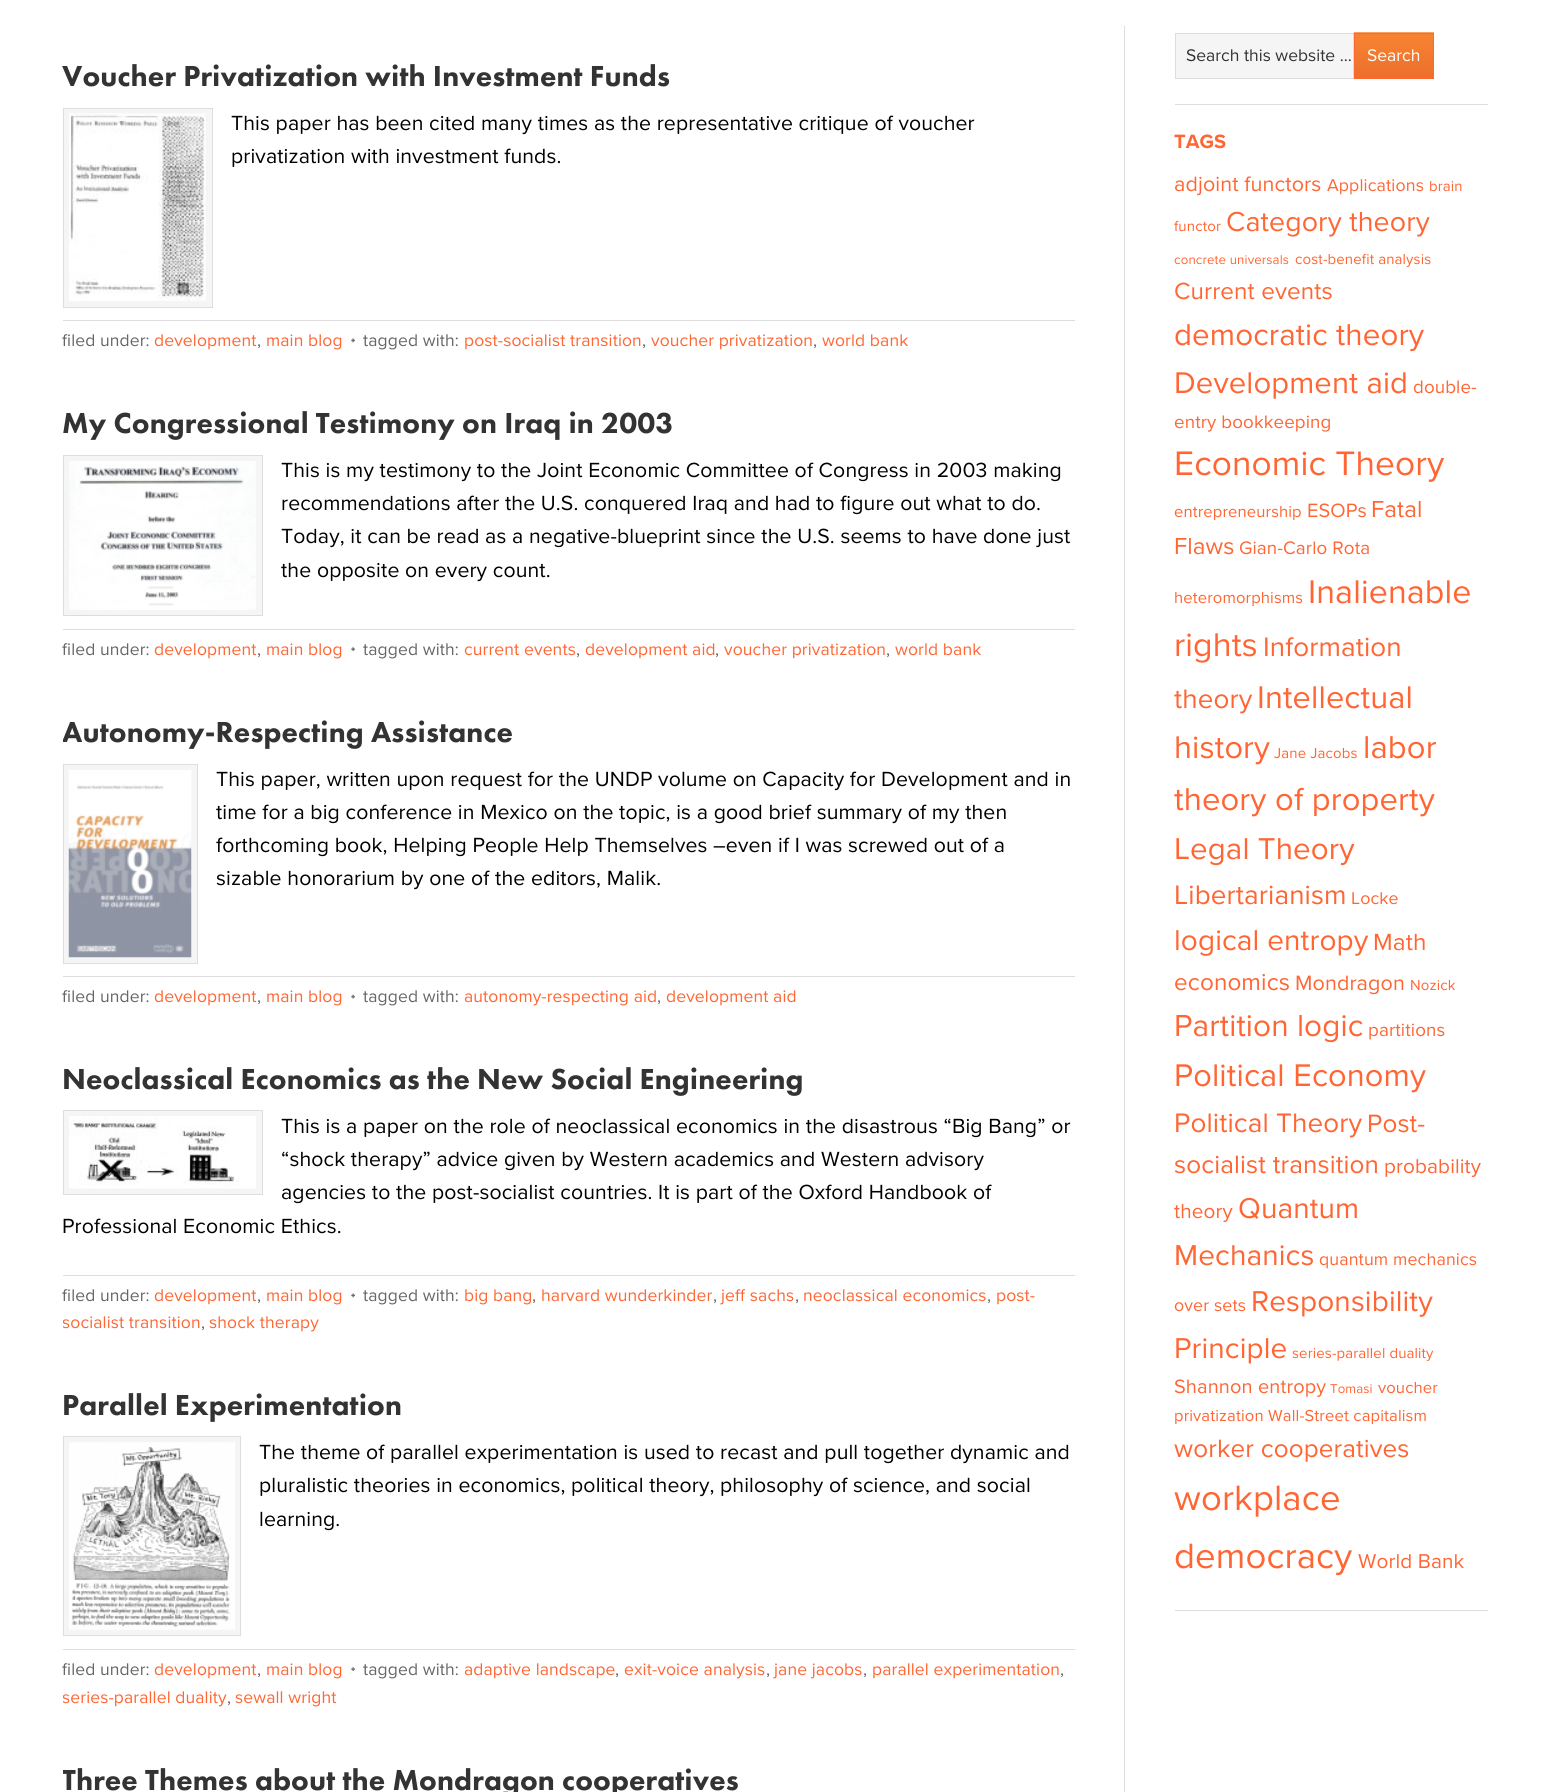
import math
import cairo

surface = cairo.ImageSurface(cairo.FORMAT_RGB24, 1548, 1792)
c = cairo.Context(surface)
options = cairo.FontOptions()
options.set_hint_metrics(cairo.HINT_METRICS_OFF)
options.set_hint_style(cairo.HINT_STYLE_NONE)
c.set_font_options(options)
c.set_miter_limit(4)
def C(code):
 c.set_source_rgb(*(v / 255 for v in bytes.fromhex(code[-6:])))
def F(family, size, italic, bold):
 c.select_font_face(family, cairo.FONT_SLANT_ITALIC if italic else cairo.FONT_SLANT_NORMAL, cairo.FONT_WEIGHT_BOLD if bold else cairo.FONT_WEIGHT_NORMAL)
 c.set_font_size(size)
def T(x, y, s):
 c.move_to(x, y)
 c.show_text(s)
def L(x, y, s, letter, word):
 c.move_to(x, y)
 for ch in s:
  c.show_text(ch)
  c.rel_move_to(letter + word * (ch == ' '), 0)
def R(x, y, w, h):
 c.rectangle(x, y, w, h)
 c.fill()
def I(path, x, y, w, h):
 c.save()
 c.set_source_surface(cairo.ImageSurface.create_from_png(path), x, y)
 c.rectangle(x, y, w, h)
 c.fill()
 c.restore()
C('ffffff')
c.paint()
C('dddddd')
R(1124,26,1,1766)
F('Futura PT Black',30,0,0)
C('333333')
L(62,86,'Voucher Privatization with Investment Funds',.12,0)
C('f5f5f5')
c.rectangle(63.5,108.5,149,199)
c.fill_preserve()
C('dddddd')
c.set_line_width(1)
c.stroke()
I('1.png',69,113,137,188)
F('Proxima Nova',21.25,0,0)
C('000000')
L(231,130,'This paper has been cited many times as the representative critique of voucher',.12,0)
L(231,163,'privatization with investment funds.',.12,0)
C('dddddd')
R(63,320,1012,1)
F('Proxima Nova',17.5,0,0)
C('666666')
L(62,346,'filed under:',.12,0)
C('ff6633')
L(154,346,'development',.12,0)
L(266,346,'main blog',.12,0)
I('2.png',351,338,4,5)
C('666666')
L(363,346,'tagged with:',.12,0)
C('ff6633')
L(464,346,'post-socialist transition',.12,0)
L(651,346,'voucher privatization',.12,0)
L(822,346,'world bank',.12,0)
C('666666')
L(257,346,',',.12,0)
L(642,346,',',.12,0)
L(813,346,',',.12,0)
F('Futura PT Black',30,0,0)
C('333333')
L(62,433,'My Congressional Testimony on Iraq in 2003',.12,0)
C('f5f5f5')
c.rectangle(63.5,455.5,199,160)
c.fill_preserve()
C('dddddd')
c.stroke()
I('3.png',69,461,187,149)
F('Proxima Nova',21.25,0,0)
C('000000')
L(281,477,'This is my testimony to the Joint Economic Committee of Congress in 2003 making',.12,0)
L(281,510,'recommendations after the U.S. conquered Iraq and had to figure out what to do.',.12,0)
L(281,543,'Today, it can be read as a negative-blueprint since the U.S. seems to have done just',.12,0)
L(281,577,'the opposite on every count.',.12,0)
C('dddddd')
R(63,629,1012,1)
F('Proxima Nova',17.5,0,0)
C('666666')
L(62,655,'filed under:',.12,0)
C('ff6633')
L(154,655,'development',.12,0)
L(266,655,'main blog',.12,0)
I('4.png',351,647,4,4)
C('666666')
L(363,655,'tagged with:',.12,0)
C('ff6633')
L(464,655,'current events',.12,0)
L(585,655,'development aid',.12,0)
L(724,655,'voucher privatization',.12,0)
L(895,655,'world bank',.12,0)
C('666666')
L(257,655,',',.12,0)
L(576,655,',',.12,0)
L(715,655,',',.12,0)
L(886,655,',',.12,0)
c.save()
c.rectangle(63,26,1425,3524)
c.clip()
F('Futura PT Black',30,0,0)
C('333333')
L(62,742,'Autonomy-Respecting Assistance',.12,0)
c.restore()
C('f5f5f5')
c.rectangle(63.5,764.5,134,199)
c.fill_preserve()
C('dddddd')
c.stroke()
I('5.png',68,770,124,188)
F('Proxima Nova',21.25,0,0)
C('000000')
L(216,786,'This paper, written upon request for the UNDP volume on Capacity for Development and in',.12,0)
L(216,819,'time for a big conference in Mexico on the topic, is a good brief summary of my then',.12,0)
L(216,852,'forthcoming book, Helping People Help Themselves –even if I was screwed out of a',.12,0)
L(216,885,'sizable honorarium by one of the editors, Malik.',.12,0)
C('dddddd')
R(63,976,1012,1)
F('Proxima Nova',17.5,0,0)
C('666666')
L(62,1002,'filed under:',.12,0)
C('ff6633')
L(154,1002,'development',.12,0)
L(266,1002,'main blog',.12,0)
I('6.png',351,994,4,5)
C('666666')
L(363,1002,'tagged with:',.12,0)
C('ff6633')
L(464,1002,'autonomy-respecting aid',.12,0)
L(666,1002,'development aid',.12,0)
C('666666')
L(257,1002,',',.12,0)
L(657,1002,',',.12,0)
F('Futura PT Black',30,0,0)
C('333333')
L(62,1089,'Neoclassical Economics as the New Social Engineering',.12,0)
C('f5f5f5')
c.rectangle(63.5,1110.5,199,84)
c.fill_preserve()
C('dddddd')
c.stroke()
I('7.png',69,1116,187,73)
F('Proxima Nova',21.25,0,0)
C('000000')
L(281,1133,'This is a paper on the role of neoclassical economics in the disastrous “Big Bang” or',.12,0)
L(281,1166,'“shock therapy” advice given by Western academics and Western advisory',.12,0)
L(281,1199,'agencies to the post-socialist countries. It is part of the Oxford Handbook of',.12,0)
L(62,1233,'Professional Economic Ethics.',.12,0)
C('dddddd')
R(63,1275,1012,1)
F('Proxima Nova',17.5,0,0)
C('666666')
L(62,1301,'filed under:',.12,0)
C('ff6633')
L(154,1301,'development',.12,0)
L(266,1301,'main blog',.12,0)
I('2.png',351,1293,4,5)
C('666666')
L(363,1301,'tagged with:',.12,0)
C('ff6633')
L(464,1301,'big bang',.12,0)
L(541,1301,'harvard wunderkinder',.12,0)
L(721,1301,'jeff sachs',.12,0)
L(803,1301,'neoclassical economics',.12,0)
L(996,1301,'post-',.12,0)
C('666666')
L(257,1301,',',.12,0)
L(532,1301,',',.12,0)
L(713,1301,',',.12,0)
L(795,1301,',',.12,0)
L(987,1301,',',.12,0)
c.save()
c.rectangle(63,26,1425,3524)
c.clip()
C('ff6633')
L(62,1328,'socialist transition',.12,0)
c.restore()
L(201,1328,',',.12,0)
C('ff6633')
L(209,1328,'shock therapy',.12,0)
F('Futura PT Black',30,0,0)
C('333333')
L(62,1415,'Parallel Experimentation',.12,0)
C('f5f5f5')
c.rectangle(63.5,1436.5,177,199)
c.fill_preserve()
C('dddddd')
c.stroke()
I('8.png',69,1442,166,188)
F('Proxima Nova',21.25,0,0)
C('000000')
L(259,1459,'The theme of parallel experimentation is used to recast and pull together dynamic and',.12,0)
L(259,1492,'pluralistic theories in economics, political theory, philosophy of science, and social',.12,0)
L(259,1526,'learning.',.12,0)
C('dddddd')
R(63,1649,1012,1)
F('Proxima Nova',17.5,0,0)
C('666666')
L(62,1675,'filed under:',.12,0)
C('ff6633')
L(154,1675,'development',.12,0)
L(266,1675,'main blog',.12,0)
I('4.png',351,1667,4,4)
C('666666')
L(363,1675,'tagged with:',.12,0)
C('ff6633')
L(464,1675,'adaptive landscape',.12,0)
L(624,1675,'exit-voice analysis',.12,0)
L(774,1675,'jane jacobs',.12,0)
L(872,1675,'parallel experimentation',.12,0)
C('666666')
L(257,1675,',',.12,0)
L(615,1675,',',.12,0)
L(766,1675,',',.12,0)
L(863,1675,',',.12,0)
L(1060,1675,',',.12,0)
c.save()
c.rectangle(63,26,1425,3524)
c.clip()
C('ff6633')
L(62,1703,'series-parallel duality',.12,0)
c.restore()
L(227,1703,',',.12,0)
C('ff6633')
L(235,1703,'sewall wright',.12,0)
c.save()
c.rectangle(63,26,1425,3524)
c.clip()
F('Futura PT Black',30,0,0)
C('333333')
L(62,1790,'Three Themes about the Mondragon cooperatives',.12,0)
c.restore()
C('dddddd')
R(1175,104,313,1)
C('f5f5f5')
R(1176,34,178,44)
c.rectangle(1175.5,33.5,187,45)
C('dddddd')
c.stroke()
C('333333')
T(1186,61,'Search this website …')
I('9.png',1353,32,81,47)
c.rectangle(1354.5,33.5,79,45)
C('ff6633')
c.stroke()
C('ffffff')
T(1367,61,'Search')
C('dddddd')
R(1175,1610,313,1)
F('Proxima Nova',20,0,1)
C('ff6633')
L(1174,148,'TAGS',.12,0)
F('Proxima Nova',21.5,0,0)
L(1174,191,'adjoint functors',.12,0)
F('Proxima Nova',17.75,0,0)
L(1327,191,'Applications',.12,0)
F('Proxima Nova',15,0,0)
L(1429,191,'brain',.12,0)
L(1174,231,'functor',.12,0)
F('Proxima Nova',28.5,0,0)
L(1226,231,'Category theory',.12,0)
F('Proxima Nova',13.25,0,0)
L(1174,264,'concrete universals',.12,0)
F('Proxima Nova',15,0,0)
L(1295,264,'cost-benefit analysis',.12,0)
F('Proxima Nova',24.25,0,0)
L(1174,299,'Current events',.12,0)
F('Proxima Nova',31.25,0,0)
L(1174,345,'democratic theory',.12,0)
F('Proxima Nova',31,0,0)
L(1174,393,'Development aid',.12,0)
F('Proxima Nova',18.75,0,0)
L(1413,393,'double-',.12,0)
L(1174,428,'entry bookkeeping',.12,0)
F('Proxima Nova',35.25,0,0)
L(1174,475,'Economic Theory',.12,0)
F('Proxima Nova',16.6,0,0)
L(1174,517,'entrepreneurship',.12,0)
F('Proxima Nova',20,0,0)
L(1307,517,'ESOPs',.12,0)
F('Proxima Nova',24,0,0)
L(1371,517,'Fatal',.12,0)
L(1174,554,'Flaws',.12,0)
F('Proxima Nova',18.75,0,0)
L(1239,554,'Gian-Carlo Rota',.12,0)
F('Proxima Nova',16.6,0,0)
L(1174,603,'heteromorphisms',.12,0)
F('Proxima Nova',34,0,0)
L(1308,603,'Inalienable',.12,0)
L(1174,656,'rights',.12,0)
F('Proxima Nova',27.75,0,0)
L(1263,656,'Information',.12,0)
L(1174,708,'theory',.12,0)
F('Proxima Nova',32.5,0,0)
L(1257,708,'Intellectual',.12,0)
L(1174,758,'history',.12,0)
F('Proxima Nova',15,0,0)
L(1274,758,'Jane Jacobs',.12,0)
F('Proxima Nova',32.75,0,0)
L(1363,758,'labor',.12,0)
L(1174,810,'theory of property',.12,0)
F('Proxima Nova',31.25,0,0)
L(1174,859,'Legal Theory',.12,0)
F('Proxima Nova',27.75,0,0)
L(1174,904,'Libertarianism',.12,0)
F('Proxima Nova',17.75,0,0)
L(1351,904,'Locke',.12,0)
F('Proxima Nova',29.75,0,0)
L(1174,950,'logical entropy',.12,0)
F('Proxima Nova',24.25,0,0)
L(1373,950,'Math',.12,0)
L(1174,990,'economics',.12,0)
F('Proxima Nova',21.5,0,0)
L(1295,990,'Mondragon',.12,0)
F('Proxima Nova',15,0,0)
L(1410,990,'Nozick',.12,0)
F('Proxima Nova',31.5,0,0)
L(1174,1036,'Partition logic',.12,0)
F('Proxima Nova',18.75,0,0)
L(1368,1036,'partitions',.12,0)
F('Proxima Nova',32.5,0,0)
L(1174,1086,'Political Economy',.12,0)
F('Proxima Nova',27.75,0,0)
L(1174,1132,'Political Theory',.12,0)
F('Proxima Nova',26,0,0)
L(1367,1132,'Post-',.12,0)
L(1174,1173,'socialist transition',.12,0)
F('Proxima Nova',20.75,0,0)
L(1384,1173,'probability',.12,0)
L(1174,1218,'theory',.12,0)
F('Proxima Nova',29.75,0,0)
L(1238,1218,'Quantum',.12,0)
L(1174,1265,'Mechanics',.12,0)
F('Proxima Nova',17.75,0,0)
L(1319,1265,'quantum mechanics',.12,0)
L(1174,1311,'over sets',.12,0)
F('Proxima Nova',29.75,0,0)
L(1251,1311,'Responsibility',.12,0)
L(1174,1358,'Principle',.12,0)
F('Proxima Nova',15,0,0)
L(1292,1358,'series-parallel duality',.12,0)
F('Proxima Nova',20,0,0)
L(1174,1393,'Shannon entropy',.12,0)
F('Proxima Nova',13.25,0,0)
L(1330,1393,'Tomasi',.12,0)
F('Proxima Nova',16.6,0,0)
L(1378,1393,'voucher',.12,0)
L(1174,1421,'privatization Wall-Street capitalism',.12,0)
F('Proxima Nova',26,0,0)
L(1174,1457,'worker cooperatives',.12,0)
F('Proxima Nova',36.5,0,0)
L(1174,1510,'workplace',.12,0)
L(1174,1568,'democracy',.12,0)
F('Proxima Nova',20.75,0,0)
L(1358,1568,'World Bank',.12,0)
surface.write_to_png('o.png')
